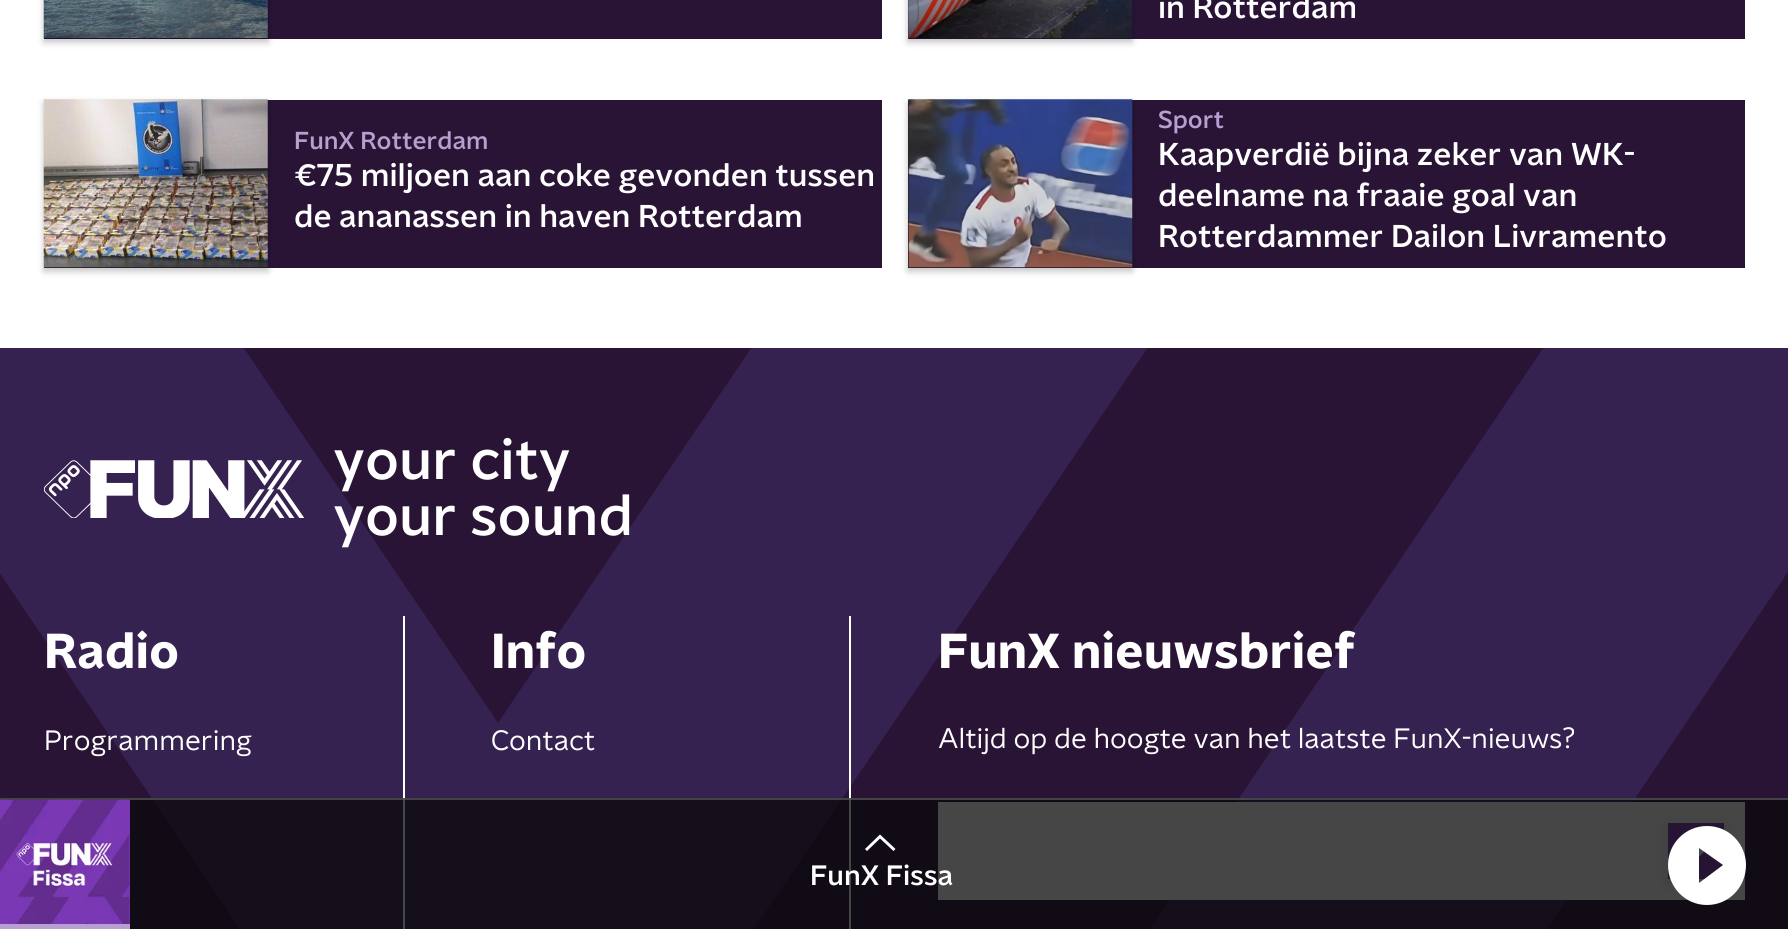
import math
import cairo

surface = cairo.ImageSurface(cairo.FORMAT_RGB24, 1788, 929)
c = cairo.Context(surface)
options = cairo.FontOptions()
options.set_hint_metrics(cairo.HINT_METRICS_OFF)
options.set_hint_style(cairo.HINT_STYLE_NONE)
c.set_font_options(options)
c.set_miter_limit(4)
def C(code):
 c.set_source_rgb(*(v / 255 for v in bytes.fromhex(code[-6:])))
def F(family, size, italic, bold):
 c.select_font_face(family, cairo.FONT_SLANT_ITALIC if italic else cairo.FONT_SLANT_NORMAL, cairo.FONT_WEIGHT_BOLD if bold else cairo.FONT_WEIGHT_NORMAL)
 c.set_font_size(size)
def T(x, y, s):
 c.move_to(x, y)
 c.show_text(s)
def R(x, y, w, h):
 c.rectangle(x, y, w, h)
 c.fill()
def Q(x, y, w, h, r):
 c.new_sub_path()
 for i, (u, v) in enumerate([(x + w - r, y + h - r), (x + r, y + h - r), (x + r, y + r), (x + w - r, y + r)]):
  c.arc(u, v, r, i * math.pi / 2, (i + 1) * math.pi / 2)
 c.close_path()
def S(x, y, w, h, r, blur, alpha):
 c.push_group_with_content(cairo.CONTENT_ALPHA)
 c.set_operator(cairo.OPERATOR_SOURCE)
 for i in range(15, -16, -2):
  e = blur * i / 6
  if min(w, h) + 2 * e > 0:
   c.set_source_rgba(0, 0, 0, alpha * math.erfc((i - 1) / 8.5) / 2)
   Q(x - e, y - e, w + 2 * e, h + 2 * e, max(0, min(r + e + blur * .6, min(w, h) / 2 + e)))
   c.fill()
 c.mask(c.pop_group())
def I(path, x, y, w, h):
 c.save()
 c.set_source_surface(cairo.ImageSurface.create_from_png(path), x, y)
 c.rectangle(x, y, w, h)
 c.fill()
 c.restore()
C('291436')
c.paint()
C('362250')
c.new_path()
c.move_to(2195,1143)
c.line_to(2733,347)
c.line_to(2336,347)
c.line_to(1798,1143)
c.close_path()
c.move_to(1402,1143)
c.line_to(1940,347)
c.line_to(1544,347)
c.line_to(1006,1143)
c.close_path()
c.move_to(-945,347)
c.line_to(-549,347)
c.line_to(-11,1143)
c.line_to(-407,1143)
c.close_path()
c.move_to(610,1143)
c.line_to(695,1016)
c.line_to(1148,347)
c.line_to(752,347)
c.line_to(498,723)
c.line_to(243,347)
c.line_to(-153,347)
c.line_to(299,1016)
c.line_to(214,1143)
c.close_path()
c.fill()
C('ffffff')
R(0,0,1788,348)
C('291436')
R(44,0,838,39)
C('000000')
S(44,-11,224,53,0,3.5,.25)
I('1.png',43,0,225,38)
C('291436')
R(908,0,837,39)
C('000000')
S(908,-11,224,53,0,3.5,.25)
I('2.png',908,0,225,38)
F('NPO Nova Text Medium',31.5,0,0)
C('ffffff')
T(1158,18,'in Rotterdam')
C('291436')
R(44,100,838,168)
C('000000')
S(44,103,224,168,0,3.5,.25)
I('3.png',43,99,225,169)
F('NPO Nova Text Medium',24.5,0,0)
C('b79fcf')
T(294,149,'FunX Rotterdam')
F('NPO Nova Text Medium',31.5,0,0)
C('ffffff')
T(294,186,'€75 miljoen aan coke gevonden tussen')
T(294,227,'de ananassen in haven Rotterdam')
C('291436')
R(908,100,837,168)
C('000000')
S(908,103,224,168,0,3.5,.25)
I('4.png',908,99,225,169)
c.save()
c.rectangle(1159,105,582,33)
c.clip()
F('NPO Nova Text Medium',24.5,0,0)
C('b79fcf')
T(1158,128,'Sport')
c.restore()
C('ffffff')
T(1158,165,'Kaapverdië bijna zeker van WK-')
T(1158,206,'deelname na fraaie goal van')
T(1158,247,'Rotterdammer Dailon Livramento')
I('5.png',44,460,261,58)
F('NPO Nova Text Medium',56,0,0)
T(333,479,'your city')
T(333,535,'your sound')
R(403,616,2,313)
F('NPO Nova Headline',49,0,1)
T(44,668,'Radio')
F('NPO Nova Text',28,0,0)
T(44,750,'Programmering')
R(849,616,2,313)
F('NPO Nova Headline',49,0,1)
T(491,668,'Info')
F('NPO Nova Text',28,0,0)
T(491,750,'Contact')
F('NPO Nova Headline',49,0,1)
T(938,668,'FunX nieuwsbrief')
F('NPO Nova Text',28,0,0)
T(938,748,'Altijd op de hoogte van het laatste FunX-nieuws?')
R(938,802,807,98)
C('000000')
S(1666,824,60,60,0,6,.1)
C('7b38b4')
R(1668,823,56,56)
I('6.png',1699,848,6,9)
c.set_source_rgba(0.035,0.035,0.035,0.75)
R(0,798,1788,131)
c.set_source_rgba(0.373,0.373,0.373,0.65)
R(0,798,1788,2)
C('7b38b4')
R(129,800,1,124)
I('7.png',0,799,130,125)
C('b79fcf')
R(0,924,130,5)
c.new_path()
c.move_to(894.5,850)
c.line_to(880,836.5)
c.line_to(866,850)
C('ffffff')
c.set_line_width(2.9)
c.stroke()
F('NPO Nova Text Medium',28,0,0)
T(810,885,'FunX Fissa')
c.new_path()
c.move_to(1707,826)
c.curve_to(1685,826,1668,844,1668,865)
c.curve_to(1668,887,1685,905,1707,905)
c.curve_to(1729,905,1746,887,1746,865)
c.curve_to(1746,844,1729,826,1707,826)
c.close_path()
c.move_to(1699,883)
c.line_to(1699,848)
c.line_to(1723,865)
c.close_path()
c.fill()
surface.write_to_png('o.png')
